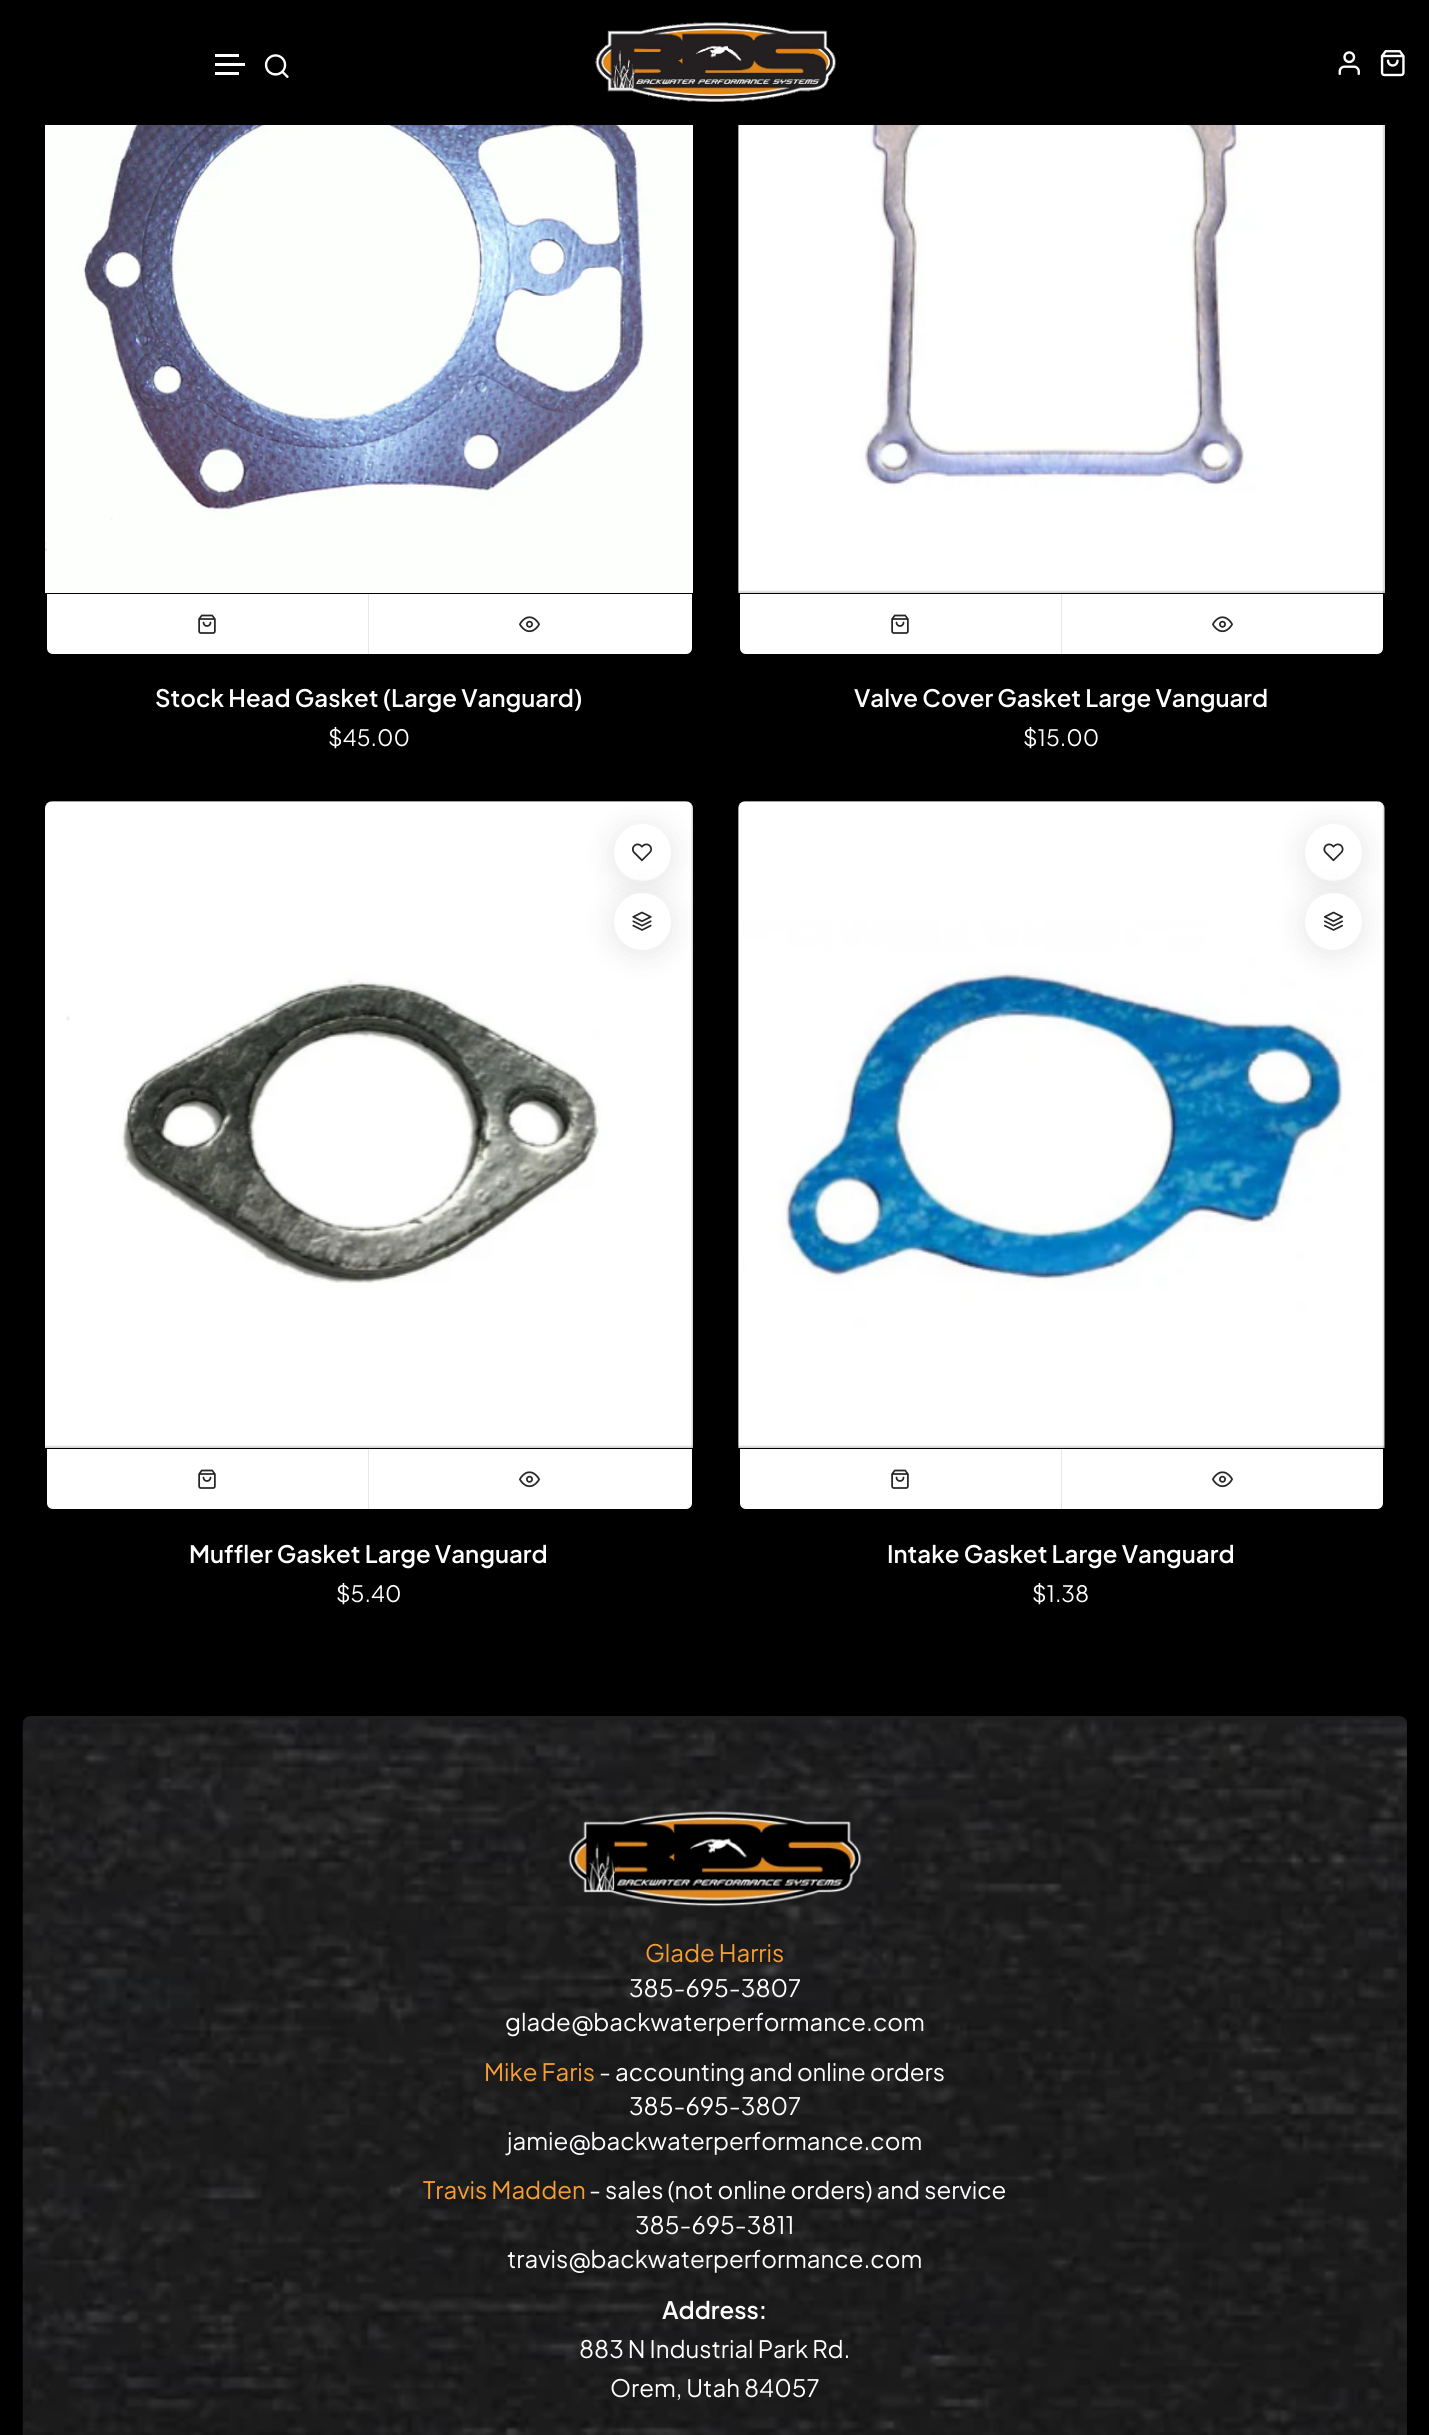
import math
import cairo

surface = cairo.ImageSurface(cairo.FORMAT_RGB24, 1429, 2435)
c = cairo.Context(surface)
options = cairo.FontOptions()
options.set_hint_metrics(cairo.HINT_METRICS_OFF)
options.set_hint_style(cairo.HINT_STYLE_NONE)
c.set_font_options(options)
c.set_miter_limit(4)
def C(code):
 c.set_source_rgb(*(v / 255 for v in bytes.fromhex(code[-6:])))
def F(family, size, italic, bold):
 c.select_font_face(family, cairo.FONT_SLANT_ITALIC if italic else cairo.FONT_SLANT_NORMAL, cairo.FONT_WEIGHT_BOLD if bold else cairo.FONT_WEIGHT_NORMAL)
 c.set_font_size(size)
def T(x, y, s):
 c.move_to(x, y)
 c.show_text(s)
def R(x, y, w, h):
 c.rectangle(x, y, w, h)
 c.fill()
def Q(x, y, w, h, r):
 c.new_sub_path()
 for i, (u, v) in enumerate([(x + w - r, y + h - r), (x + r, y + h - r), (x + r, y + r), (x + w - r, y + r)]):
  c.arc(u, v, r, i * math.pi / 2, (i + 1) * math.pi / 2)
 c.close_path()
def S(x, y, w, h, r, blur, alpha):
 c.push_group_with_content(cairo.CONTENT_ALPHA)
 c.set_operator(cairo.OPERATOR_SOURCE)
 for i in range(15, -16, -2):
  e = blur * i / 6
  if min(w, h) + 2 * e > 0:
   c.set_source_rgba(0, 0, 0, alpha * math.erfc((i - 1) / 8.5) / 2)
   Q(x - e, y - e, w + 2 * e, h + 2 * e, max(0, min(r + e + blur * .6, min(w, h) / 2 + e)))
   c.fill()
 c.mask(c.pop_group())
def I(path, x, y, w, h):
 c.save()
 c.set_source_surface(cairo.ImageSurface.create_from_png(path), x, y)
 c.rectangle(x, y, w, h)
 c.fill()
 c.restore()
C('000000')
c.paint()
C('ffffff')
R(215,54,24,3)
R(215,63,30,3)
R(215,72,24,3)
I('1.png',264,54,25,24)
I('2.png',595,22,241,80)
I('3.png',1338,51,22,24)
I('4.png',1380,50,25,27)
I('5.png',45,125,648,468)
c.new_path()
c.move_to(47,594)
c.line_to(369,594)
c.line_to(369,654)
c.line_to(53,654)
c.curve_to(49.5,654,47,651.5,47,648)
c.close_path()
c.fill()
C('e6e6e6')
R(368,594,1,60)
I('6.png',198,614,18,20)
C('ffffff')
c.new_path()
c.move_to(369,594)
c.line_to(692,594)
c.line_to(692,648)
c.curve_to(692,651.5,689.5,654,686,654)
c.line_to(369,654)
c.close_path()
c.fill()
I('7.png',519,616,21,17)
F('Plus Jakarta Sans SemiBold',24,0,0)
T(155,707,'Stock Head Gasket (Large Vanguard)')
F('Plus Jakarta Sans',22.5,0,0)
T(328,746,'$45.00')
I('8.png',738,125,647,468)
c.new_path()
c.move_to(740,594)
c.line_to(1062,594)
c.line_to(1062,654)
c.line_to(746,654)
c.curve_to(742.5,654,740,651.5,740,648)
c.close_path()
c.fill()
C('e6e6e6')
R(1061,594,1,60)
I('6.png',891,614,18,20)
C('ffffff')
c.new_path()
c.move_to(1062,594)
c.line_to(1383,594)
c.line_to(1383,648)
c.curve_to(1383,651.5,1380.5,654,1377,654)
c.line_to(1062,654)
c.close_path()
c.fill()
I('7.png',1212,616,21,17)
F('Plus Jakarta Sans SemiBold',24,0,0)
T(854,707,'Valve Cover Gasket Large Vanguard')
F('Plus Jakarta Sans',22.5,0,0)
T(1023,746,'$15.00')
I('11.png',45,801,648,647)
C('000000')
S(614,827,57,57,28.5,15,.1)
C('ffffff')
c.arc(642.5,852.5,28.5,0,2 * math.pi)
c.fill()
I('9.png',631,843,21,19)
C('000000')
S(614,896,57,57,28.5,15,.1)
C('ffffff')
c.arc(642.5,921.5,28.5,0,2 * math.pi)
c.fill()
I('10.png',632,911,20,20)
c.new_path()
c.move_to(47,1449)
c.line_to(369,1449)
c.line_to(369,1509)
c.line_to(53,1509)
c.curve_to(49.5,1509,47,1506.5,47,1503)
c.close_path()
c.fill()
C('e6e6e6')
R(368,1449,1,60)
I('6.png',198,1469,18,20)
C('ffffff')
c.new_path()
c.move_to(369,1449)
c.line_to(692,1449)
c.line_to(692,1503)
c.curve_to(692,1506.5,689.5,1509,686,1509)
c.line_to(369,1509)
c.close_path()
c.fill()
I('7.png',519,1471,21,17)
F('Plus Jakarta Sans SemiBold',24,0,0)
T(189,1563,'Muffler Gasket Large Vanguard')
F('Plus Jakarta Sans',22.5,0,0)
T(336,1602,'$5.40')
I('14.png',738,801,647,647)
C('000000')
S(1305,827,57,57,28.5,15,.1)
C('ffffff')
c.arc(1333.5,852.5,28.5,0,2 * math.pi)
c.fill()
I('12.png',1323,843,21,19)
C('000000')
S(1305,896,57,57,28.5,15,.1)
C('ffffff')
c.arc(1333.5,921.5,28.5,0,2 * math.pi)
c.fill()
I('13.png',1323,911,21,20)
c.new_path()
c.move_to(740,1449)
c.line_to(1062,1449)
c.line_to(1062,1509)
c.line_to(746,1509)
c.curve_to(742.5,1509,740,1506.5,740,1503)
c.close_path()
c.fill()
C('e6e6e6')
R(1061,1449,1,60)
I('6.png',891,1469,18,20)
C('ffffff')
c.new_path()
c.move_to(1062,1449)
c.line_to(1383,1449)
c.line_to(1383,1503)
c.curve_to(1383,1506.5,1380.5,1509,1377,1509)
c.line_to(1062,1509)
c.close_path()
c.fill()
I('7.png',1212,1471,21,17)
F('Plus Jakarta Sans SemiBold',24,0,0)
T(887,1563,'Intake Gasket Large Vanguard')
F('Plus Jakarta Sans',22.5,0,0)
T(1032,1602,'$1.38')
C('1c211f')
c.new_path()
c.move_to(31,1716)
c.line_to(1399,1716)
c.curve_to(1403.5,1716,1407,1719.5,1407,1724)
c.line_to(1407,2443)
c.line_to(23,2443)
c.line_to(23,1724)
c.curve_to(23,1719.5,26.5,1716,31,1716)
c.close_path()
c.fill()
I('15.png',22,1718,1385,717)
I('16.png',568,1811,294,96)
F('Plus Jakarta Sans',24,0,0)
C('f79e33')
T(645,1962,'Glade Harris')
C('ffffff')
T(629,1997,'385-695-3807')
T(505,2031,'glade@backwaterperformance.com')
C('f79e33')
T(484,2081,'Mike Faris')
C('ffffff')
T(599,2081,'- accounting and online orders')
T(629,2115,'385-695-3807')
T(507,2150,'jamie@backwaterperformance.com')
C('f79e33')
T(423,2199,'Travis Madden')
C('ffffff')
T(589,2199,'- sales (not online orders) and service')
T(635,2234,'385-695-3811')
T(507,2268,'travis@backwaterperformance.com')
F('Plus Jakarta Sans SemiBold',24,0,0)
T(662,2319,'Address:')
F('Plus Jakarta Sans',24,0,0)
T(579,2358,'883 N Industrial Park Rd.')
T(610,2397,'Orem, Utah 84057')
surface.write_to_png('o.png')
